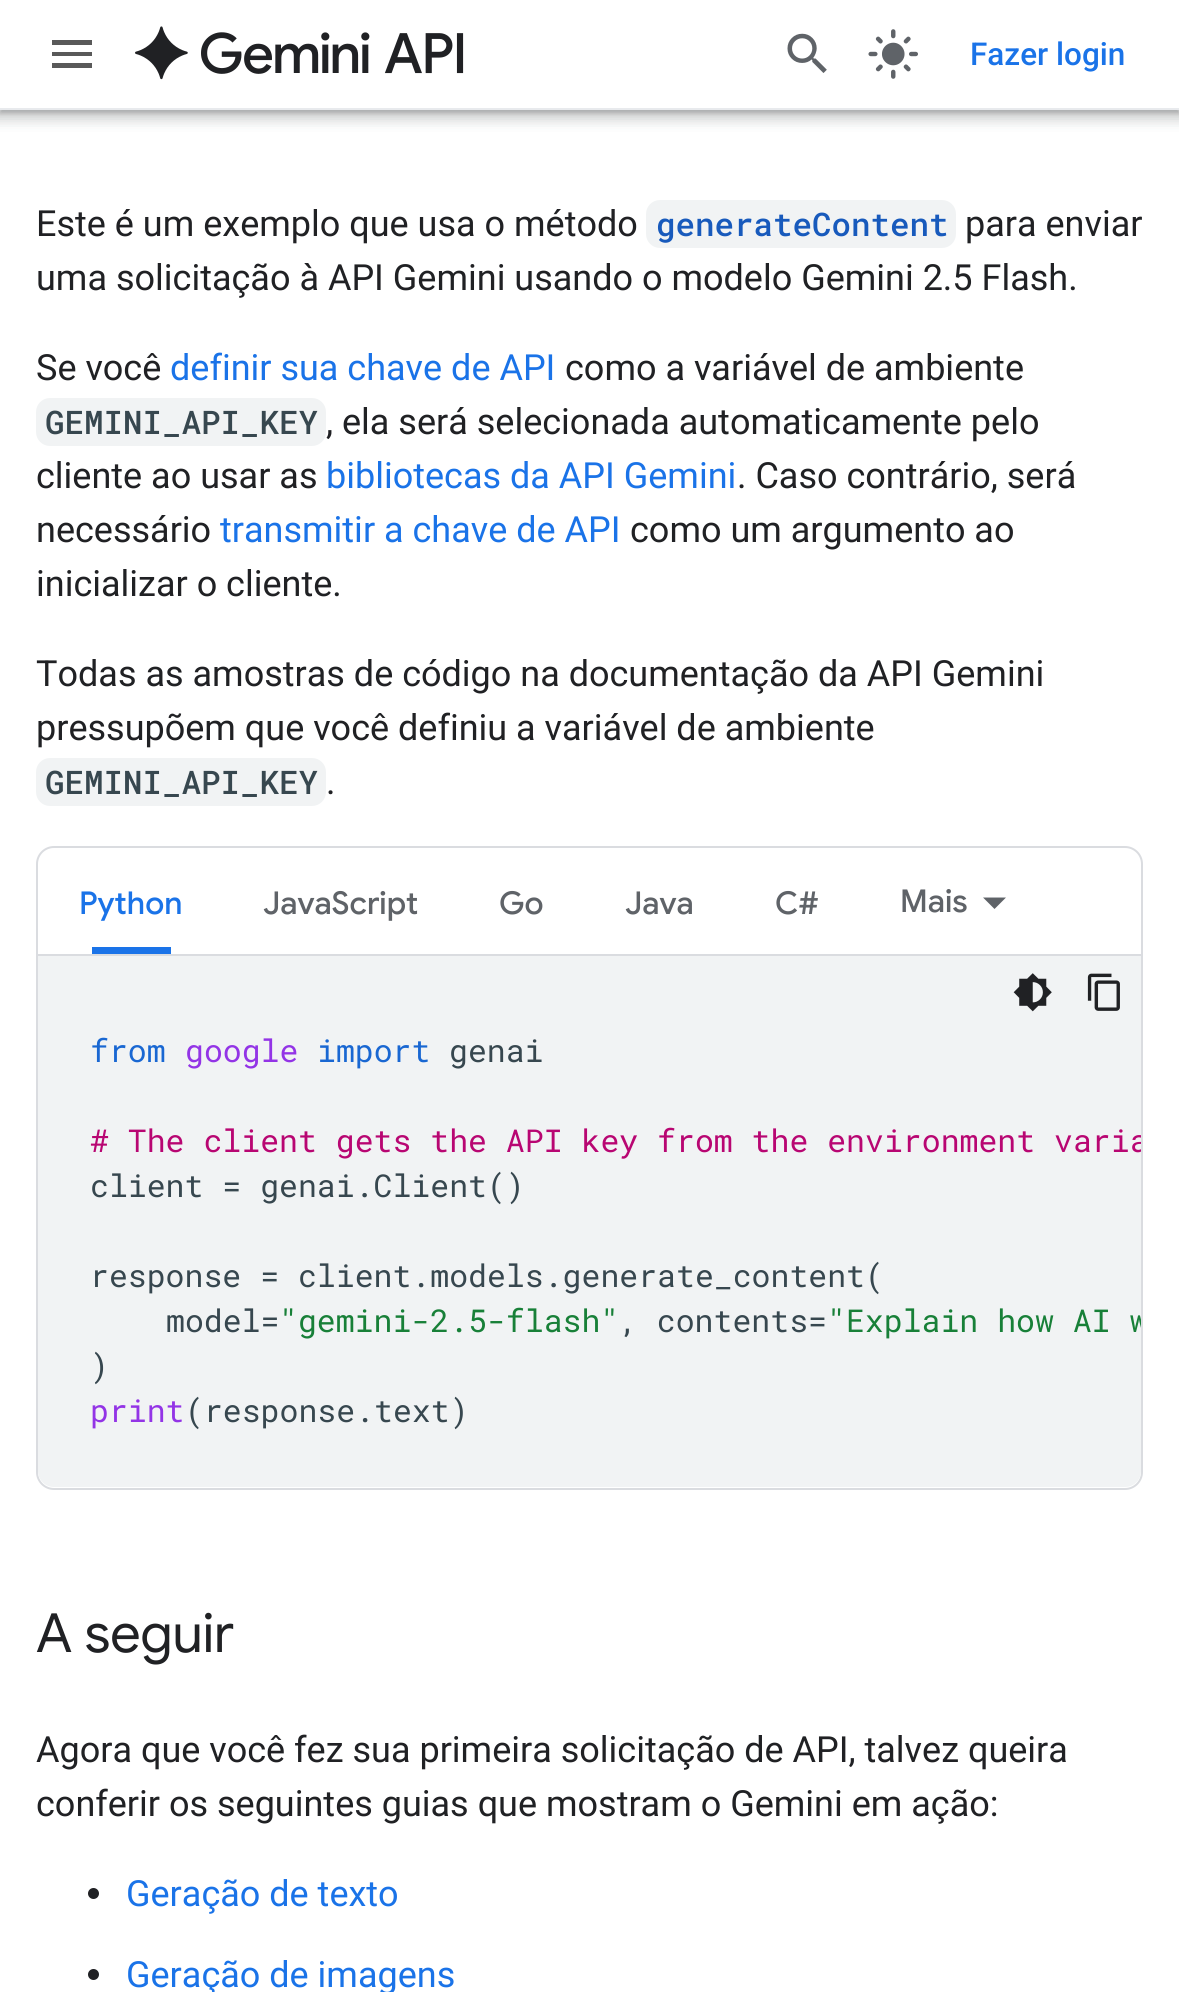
import math
import cairo

surface = cairo.ImageSurface(cairo.FORMAT_RGB24, 1179, 1992)
c = cairo.Context(surface)
options = cairo.FontOptions()
options.set_hint_metrics(cairo.HINT_METRICS_OFF)
options.set_hint_style(cairo.HINT_STYLE_NONE)
c.set_font_options(options)
c.set_miter_limit(4)
def C(code):
 c.set_source_rgb(*(v / 255 for v in bytes.fromhex(code[-6:])))
def F(family, size, italic, bold):
 c.select_font_face(family, cairo.FONT_SLANT_ITALIC if italic else cairo.FONT_SLANT_NORMAL, cairo.FONT_WEIGHT_BOLD if bold else cairo.FONT_WEIGHT_NORMAL)
 c.set_font_size(size)
def T(x, y, s):
 c.move_to(x, y)
 c.show_text(s)
def R(x, y, w, h):
 c.rectangle(x, y, w, h)
 c.fill()
def Q(x, y, w, h, r):
 c.new_sub_path()
 for i, (u, v) in enumerate([(x + w - r, y + h - r), (x + r, y + h - r), (x + r, y + r), (x + w - r, y + r)]):
  c.arc(u, v, r, i * math.pi / 2, (i + 1) * math.pi / 2)
 c.close_path()
def S(x, y, w, h, r, blur, alpha):
 c.push_group_with_content(cairo.CONTENT_ALPHA)
 c.set_operator(cairo.OPERATOR_SOURCE)
 for i in range(15, -16, -2):
  e = blur * i / 6
  if min(w, h) + 2 * e > 0:
   c.set_source_rgba(0, 0, 0, alpha * math.erfc((i - 1) / 8.5) / 2)
   Q(x - e, y - e, w + 2 * e, h + 2 * e, max(0, min(r + e + blur * .6, min(w, h) / 2 + e)))
   c.fill()
 c.mask(c.pop_group())
def I(path, x, y, w, h):
 c.save()
 c.set_source_surface(cairo.ImageSurface.create_from_png(path), x, y)
 c.rectangle(x, y, w, h)
 c.fill()
 c.restore()
C('ffffff')
c.paint()
C('3c4043')
S(-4,0,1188,119,0,7,.15)
S(0,2,1179,111,0,2,.3)
S(-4,110,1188,9,0,7,.15)
C('ffffff')
R(0,0,1179,108)
C('e8eaed')
R(0,108,1179,2)
C('595959')
c.new_path()
c.move_to(52,40)
c.line_to(92,40)
c.line_to(92,45)
c.line_to(52,45)
c.close_path()
c.move_to(52,56)
c.line_to(52,52)
c.line_to(92,52)
c.line_to(92,56)
c.close_path()
c.move_to(52,68)
c.line_to(52,63)
c.line_to(92,63)
c.line_to(92,68)
c.close_path()
c.fill()
I('1.png',135,26,329,54)
I('2.png',787,33,40,40)
I('3.png',868,29,50,50)
F('Roboto Medium',31.5,0,0)
C('1a73e8')
T(970,65,'Fazer login')
F('Roboto',36,0,0)
C('202124')
T(36,236,'Este é um exemplo que usa o método')
C('f1f3f4')
Q(646,200,310,48,14)
c.fill()
F('Roboto Mono Medium',32.5,0,0)
C('185abc')
T(656,236,'generateContent')
F('Roboto',36,0,0)
C('202124')
T(965,236,'para enviar')
T(36,290,'uma solicitação à API Gemini usando o modelo Gemini 2.5 Flash.')
T(36,380,'Se você')
C('1a73e8')
T(170,380,'definir sua chave de API')
C('202124')
T(565,380,'como a variável de ambiente')
C('f1f3f4')
Q(36,398,290,48,14)
c.fill()
F('Roboto Mono Medium',32.5,0,0)
C('37474f')
T(45,434,'GEMINI_API_KEY')
F('Roboto',36,0,0)
C('202124')
T(326,434,', ela será selecionada automaticamente pelo')
T(36,488,'cliente ao usar as')
C('1a73e8')
T(326,488,'bibliotecas da API Gemini')
C('202124')
T(737,488,'. Caso contrário, será')
T(36,542,'necessário')
C('1a73e8')
T(220,542,'transmitir a chave de API')
C('202124')
T(630,542,'como um argumento ao')
T(36,596,'inicializar o cliente.')
T(36,686,'Todas as amostras de código na documentação da API Gemini')
T(36,740,'pressupõem que você definiu a variável de ambiente')
C('f1f3f4')
Q(36,758,290,48,14)
c.fill()
F('Roboto Mono Medium',32.5,0,0)
C('37474f')
T(45,794,'GEMINI_API_KEY')
F('Roboto',36,0,0)
C('202124')
T(326,794,'.')
Q(37,847,1105,642,17)
C('dadce0')
c.stroke()
R(38,954,1103,2)
F('Google Sans Medium',31.5,0,0)
C('1a73e8')
T(79,914,'Python')
R(92,947,79,7)
C('5f6368')
T(263,914,'JavaScript')
T(499,914,'Go')
T(625,914,'Java')
T(775,914,'C#')
T(900,912,'Mais')
c.new_path()
c.move_to(983,897.5)
c.line_to(1006,897.5)
c.line_to(994.5,909)
c.close_path()
c.fill()
C('f1f3f4')
c.new_path()
c.move_to(38,956)
c.line_to(1141,956)
c.line_to(1141,1471)
c.curve_to(1141,1480,1134,1487,1125,1487)
c.line_to(54,1487)
c.curve_to(45,1487,38,1480,38,1471)
c.close_path()
c.fill()
I('4.png',1013,973,39,39)
I('5.png',1087,973,33,38)
F('Roboto Mono',31.5,0,0)
C('1967d2')
T(90,1062,'from')
C('9334e6')
T(185,1062,'google')
C('1967d2')
T(317,1062,'import')
C('37474f')
T(449,1062,'genai')
c.save()
c.new_path()
c.move_to(38,956)
c.line_to(1141,956)
c.line_to(1141,1471)
c.curve_to(1141,1480,1134,1487,1125,1487)
c.line_to(54,1487)
c.curve_to(45,1487,38,1480,38,1471)
c.close_path()
c.clip()
C('b80672')
T(90,1152,'# The client gets the API key from the environment varia')
c.restore()
T(90,1197,'client = genai.Client()')
T(90,1287,'response = client.models.generate_content(')
T(166,1332,'model=')
C('188038')
T(279,1332,'"gemini-2.5-flash"')
C('37474f')
T(619,1332,', contents=')
c.save()
c.new_path()
c.move_to(38,956)
c.line_to(1141,956)
c.line_to(1141,1471)
c.curve_to(1141,1480,1134,1487,1125,1487)
c.line_to(54,1487)
c.curve_to(45,1487,38,1480,38,1471)
c.close_path()
c.clip()
C('188038')
T(827,1332,'"Explain how AI w')
c.restore()
T(90,1377,')')
C('9334e6')
T(90,1422,'print')
C('37474f')
T(185,1422,'(response.text)')
F('Google Sans',54,0,0)
C('202124')
T(36,1652,'A seguir')
F('Roboto',36,0,0)
T(36,1762,'Agora que você fez sua primeira solicitação de API, talvez queira')
T(36,1816,'conferir os seguintes guias que mostram o Gemini em ação:')
c.new_path()
c.arc(93.5,1893.5,5.5,0,2 * math.pi)
c.fill()
C('1a73e8')
T(126,1906,'Geração de texto')
C('202124')
c.new_path()
c.arc(93.5,1974.5,5.5,0,2 * math.pi)
c.fill()
C('1a73e8')
T(126,1987,'Geração de imagens')
surface.write_to_png('o.png')
